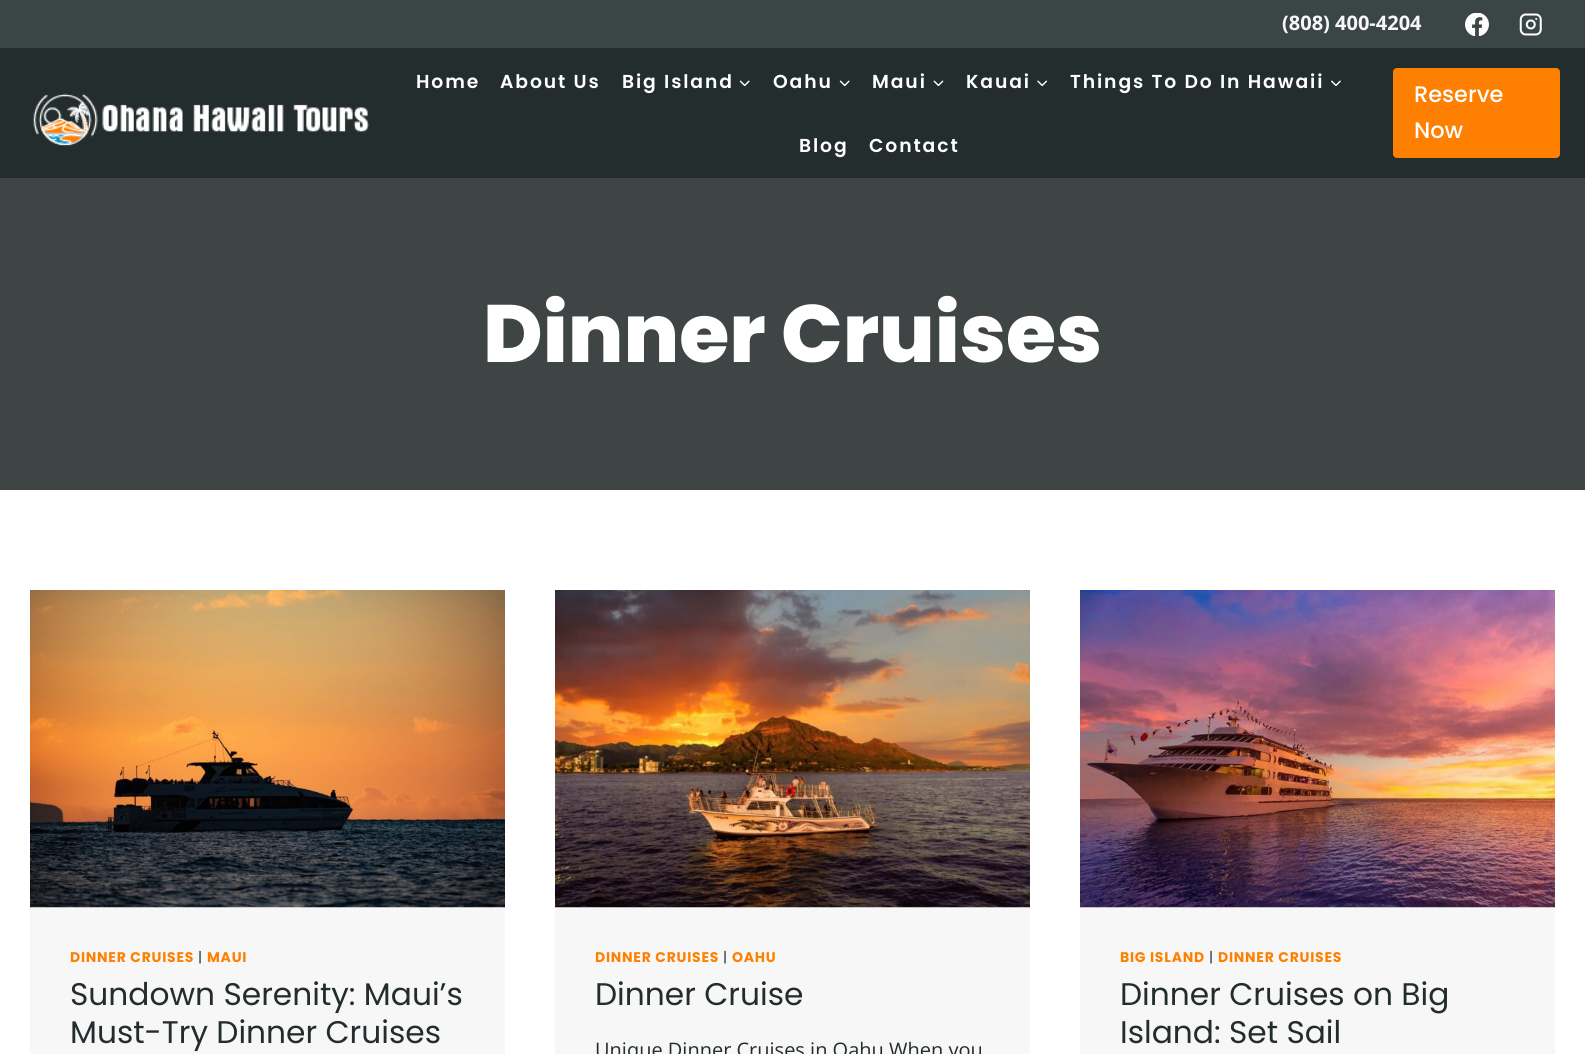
import math
import cairo

surface = cairo.ImageSurface(cairo.FORMAT_RGB24, 1585, 1054)
c = cairo.Context(surface)
options = cairo.FontOptions()
options.set_hint_metrics(cairo.HINT_METRICS_OFF)
options.set_hint_style(cairo.HINT_STYLE_NONE)
c.set_font_options(options)
c.set_miter_limit(4)
def C(code):
 c.set_source_rgb(*(v / 255 for v in bytes.fromhex(code[-6:])))
def F(family, size, italic, bold):
 c.select_font_face(family, cairo.FONT_SLANT_ITALIC if italic else cairo.FONT_SLANT_NORMAL, cairo.FONT_WEIGHT_BOLD if bold else cairo.FONT_WEIGHT_NORMAL)
 c.set_font_size(size)
def T(x, y, s):
 c.move_to(x, y)
 c.show_text(s)
def L(x, y, s, letter, word):
 c.move_to(x, y)
 for ch in s:
  c.show_text(ch)
  c.rel_move_to(letter + word * (ch == ' '), 0)
def R(x, y, w, h):
 c.rectangle(x, y, w, h)
 c.fill()
def Q(x, y, w, h, r):
 c.new_sub_path()
 for i, (u, v) in enumerate([(x + w - r, y + h - r), (x + r, y + h - r), (x + r, y + r), (x + w - r, y + r)]):
  c.arc(u, v, r, i * math.pi / 2, (i + 1) * math.pi / 2)
 c.close_path()
def I(path, x, y, w, h):
 c.save()
 c.set_source_surface(cairo.ImageSurface.create_from_png(path), x, y)
 c.rectangle(x, y, w, h)
 c.fill()
 c.restore()
C('ffffff')
c.paint()
C('3a4646')
R(0,0,1585,48)
F('Open Sans',20,0,1)
C('f7f7f7')
T(1282,30,'(808) 400-4204')
I('1.png',1465,13,24,23)
I('2.png',1519,13,23,23)
C('242d2d')
R(0,48,1585,130)
I('3.png',33,93,336,53)
F('Poppins SemiBold',18.75,0,0)
C('ffffff')
L(416,88,'Home',1.9,0)
L(500,88,'About Us',1.9,0)
L(622,88,'Big Island',1.9,0)
I('4.png',739,80,11,7)
L(773,88,'Oahu',1.9,0)
I('4.png',839,80,11,7)
L(872,88,'Maui',1.9,0)
I('5.png',933,80,11,7)
L(966,88,'Kauai',1.9,0)
I('6.png',1037,80,11,7)
L(1070,88,'Things To Do In Hawaii',1.9,0)
I('7.png',1331,80,10,7)
L(799,152,'Blog',1.9,0)
L(869,152,'Contact',1.9,0)
C('ff7f00')
Q(1393,68,167,90,4)
c.fill()
F('Poppins Medium',22.5,0,0)
C('ffffff')
T(1414,102,'Reserve')
T(1414,138,'Now')
C('3f4444')
R(0,178,1585,312)
F('Poppins ExtraBold',81.25,0,0)
C('ffffff')
T(483,362,'Dinner Cruises')
C('f7f7f7')
R(30,907,475,147)
I('8.png',30,590,475,318)
F('Poppins',14,0,1)
C('ff7f00')
L(70,962,'DINNER CRUISES',.75,0)
F('Poppins',14,0,0)
C('242d2d')
L(198,962,'|',.75,0)
F('Poppins',14,0,1)
C('ff7f00')
L(207,962,'MAUI',.75,0)
F('Poppins',31.25,0,0)
C('242d2d')
T(70,1005,'Sundown Serenity: Maui’s')
T(70,1043,'Must-Try Dinner Cruises')
C('f7f7f7')
R(555,907,475,147)
I('9.png',555,590,475,318)
F('Poppins',14,0,1)
C('ff7f00')
L(595,962,'DINNER CRUISES',.75,0)
F('Poppins',14,0,0)
C('242d2d')
L(723,962,'|',.75,0)
F('Poppins',14,0,1)
C('ff7f00')
L(732,962,'OAHU',.75,0)
F('Poppins',31.25,0,0)
C('242d2d')
T(595,1005,'Dinner Cruise')
F('Open Sans',20,0,0)
T(595,1057,'Unique Dinner Cruises in Oahu When you')
C('f7f7f7')
R(1080,907,475,147)
I('10.png',1080,590,475,318)
F('Poppins',14,0,1)
C('ff7f00')
L(1120,962,'BIG ISLAND',.75,0)
F('Poppins',14,0,0)
C('242d2d')
L(1209,962,'|',.75,0)
F('Poppins',14,0,1)
C('ff7f00')
L(1218,962,'DINNER CRUISES',.75,0)
F('Poppins',31.25,0,0)
C('242d2d')
T(1120,1005,'Dinner Cruises on Big')
T(1120,1043,'Island: Set Sail')
surface.write_to_png('o.png')
